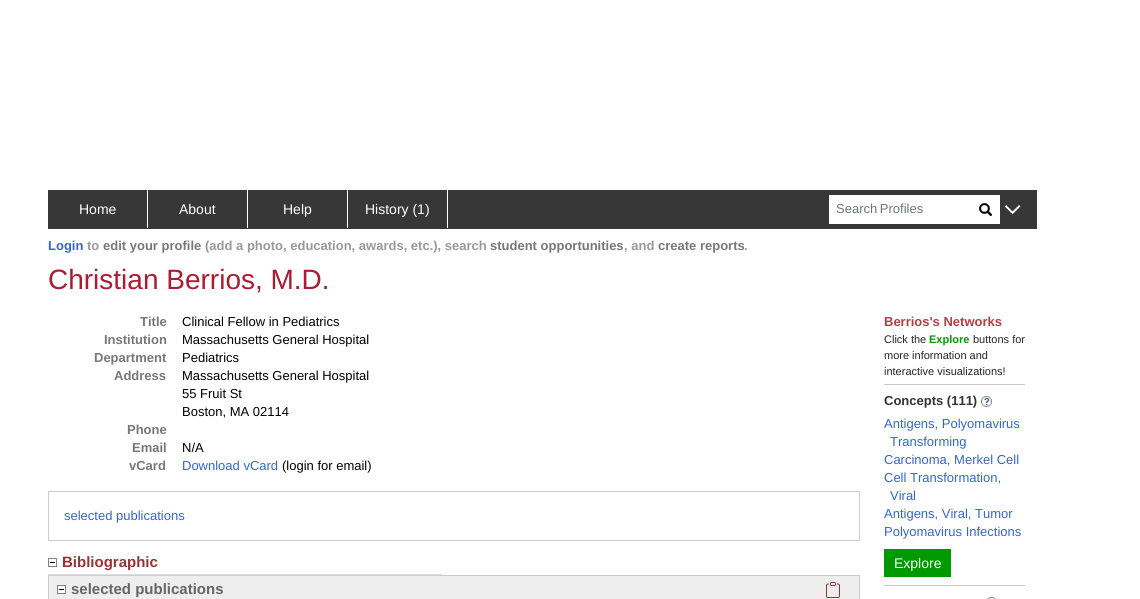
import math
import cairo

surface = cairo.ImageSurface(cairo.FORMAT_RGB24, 1140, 599)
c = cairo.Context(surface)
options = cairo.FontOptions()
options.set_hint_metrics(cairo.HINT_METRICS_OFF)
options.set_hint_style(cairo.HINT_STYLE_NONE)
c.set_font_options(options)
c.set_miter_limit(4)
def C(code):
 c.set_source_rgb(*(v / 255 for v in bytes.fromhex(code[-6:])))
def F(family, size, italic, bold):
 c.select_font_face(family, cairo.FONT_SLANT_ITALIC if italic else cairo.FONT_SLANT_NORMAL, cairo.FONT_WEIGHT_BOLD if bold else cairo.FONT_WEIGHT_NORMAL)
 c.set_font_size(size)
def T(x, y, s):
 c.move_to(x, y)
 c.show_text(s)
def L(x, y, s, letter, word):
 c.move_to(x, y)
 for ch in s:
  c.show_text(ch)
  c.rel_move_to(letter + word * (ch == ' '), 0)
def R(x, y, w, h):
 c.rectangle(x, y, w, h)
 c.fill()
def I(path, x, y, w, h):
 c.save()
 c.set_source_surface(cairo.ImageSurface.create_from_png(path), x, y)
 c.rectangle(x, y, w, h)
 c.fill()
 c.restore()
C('ffffff')
c.paint()
C('383737')
R(48,190,989,39)
C('ffffff')
R(147,190,1,38)
F('Liberation Sans',14,0,0)
T(79,214,'Home')
R(247,190,1,38)
T(179,214,'About')
R(347,190,1,38)
T(283,214,'Help')
R(447,190,1,38)
T(365,214,'History (1)')
R(829,195,171,29)
F('Liberation Sans',13,0,0)
C('6c757d')
L(836,213,'Search Profiles',0,-1)
I('1.png',979,203,13,13)
I('2.png',1004,205,17,10)
F('Liberation Sans',13,0,1)
C('3366cc')
T(48,250,'Login')
C('999999')
T(87,250,'to')
C('777777')
T(103,250,'edit your profile')
C('999999')
T(205,250,'(add a photo, education, awards, etc.), search')
C('777777')
T(490,250,'student opportunities')
C('999999')
T(624,250,', and')
C('777777')
T(658,250,'create reports')
C('999999')
T(744,250,'.')
F('Liberation Sans',28,0,0)
C('ac1b30')
T(48,289,'Christian Berrios, M.D.')
F('Liberation Sans',13,0,1)
C('777777')
T(140,326,'Title')
F('Liberation Sans',13,0,0)
C('000000')
T(182,326,'Clinical Fellow in Pediatrics')
F('Liberation Sans',13,0,1)
C('777777')
T(104,344,'Institution')
F('Liberation Sans',13,0,0)
C('000000')
T(182,344,'Massachusetts General Hospital')
F('Liberation Sans',13,0,1)
C('777777')
T(94,362,'Department')
F('Liberation Sans',13,0,0)
C('000000')
T(182,362,'Pediatrics')
F('Liberation Sans',13,0,1)
C('777777')
T(114,380,'Address')
F('Liberation Sans',13,0,0)
C('000000')
T(182,380,'Massachusetts General Hospital')
T(182,398,'55 Fruit St')
T(182,416,'Boston, MA 02114')
F('Liberation Sans',13,0,1)
C('777777')
T(127,434,'Phone')
T(132,452,'Email')
F('Liberation Sans',13,0,0)
C('000000')
T(182,452,'N/A')
F('Liberation Sans',13,0,1)
C('777777')
T(129,470,'vCard')
F('Liberation Sans',13,0,0)
C('3366cc')
T(182,470,'Download vCard')
C('000000')
T(282,470,'(login for email)')
c.rectangle(48.5,491.5,811,49)
C('cccccc')
c.set_line_width(1)
c.stroke()
C('3366cc')
T(64,520,'selected publications')
C('dfdfdf')
R(48,574,394,1)
I('3.png',48,558,9,9)
F('Liberation Sans',15,0,1)
C('993333')
T(62,567,'Bibliographic')
c.rectangle(48.5,575.5,811,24)
C('cccccc')
c.stroke()
C('eeeeee')
R(49,576,810,23)
I('3.png',57,585,9,9)
C('666666')
T(71,594,'selected publications')
I('4.png',826,582,14,16)
F('Liberation Sans',13,0,1)
C('b23f45')
T(884,326,'Berrios\'s Networks')
F('Liberation Sans',11,0,0)
C('212529')
T(884,343,'Click the')
F('Liberation Sans',11,0,1)
C('009900')
T(929,343,'Explore')
F('Liberation Sans',11,0,0)
C('212529')
T(973,343,'buttons for')
T(884,359,'more information and')
T(884,375,'interactive visualizations!')
C('c8c9ca')
R(884,384,141,1)
F('Liberation Sans',13,0,1)
C('333333')
T(884,405,'Concepts (111)')
I('5.png',981,396,11,11)
F('Liberation Sans',13,0,0)
C('3366cc')
T(884,428,'Antigens, Polyomavirus')
T(890,446,'Transforming')
T(884,464,'Carcinoma, Merkel Cell')
T(884,482,'Cell Transformation,')
T(890,500,'Viral')
T(884,518,'Antigens, Viral, Tumor')
T(884,536,'Polyomavirus Infections')
C('009900')
R(884,549,67,28)
F('Liberation Sans',14,0,0)
C('ffffff')
T(894,568,'Explore')
C('c8c9ca')
R(884,585,141,1)
I('6.png',987,597,9,2)
surface.write_to_png('o.png')
